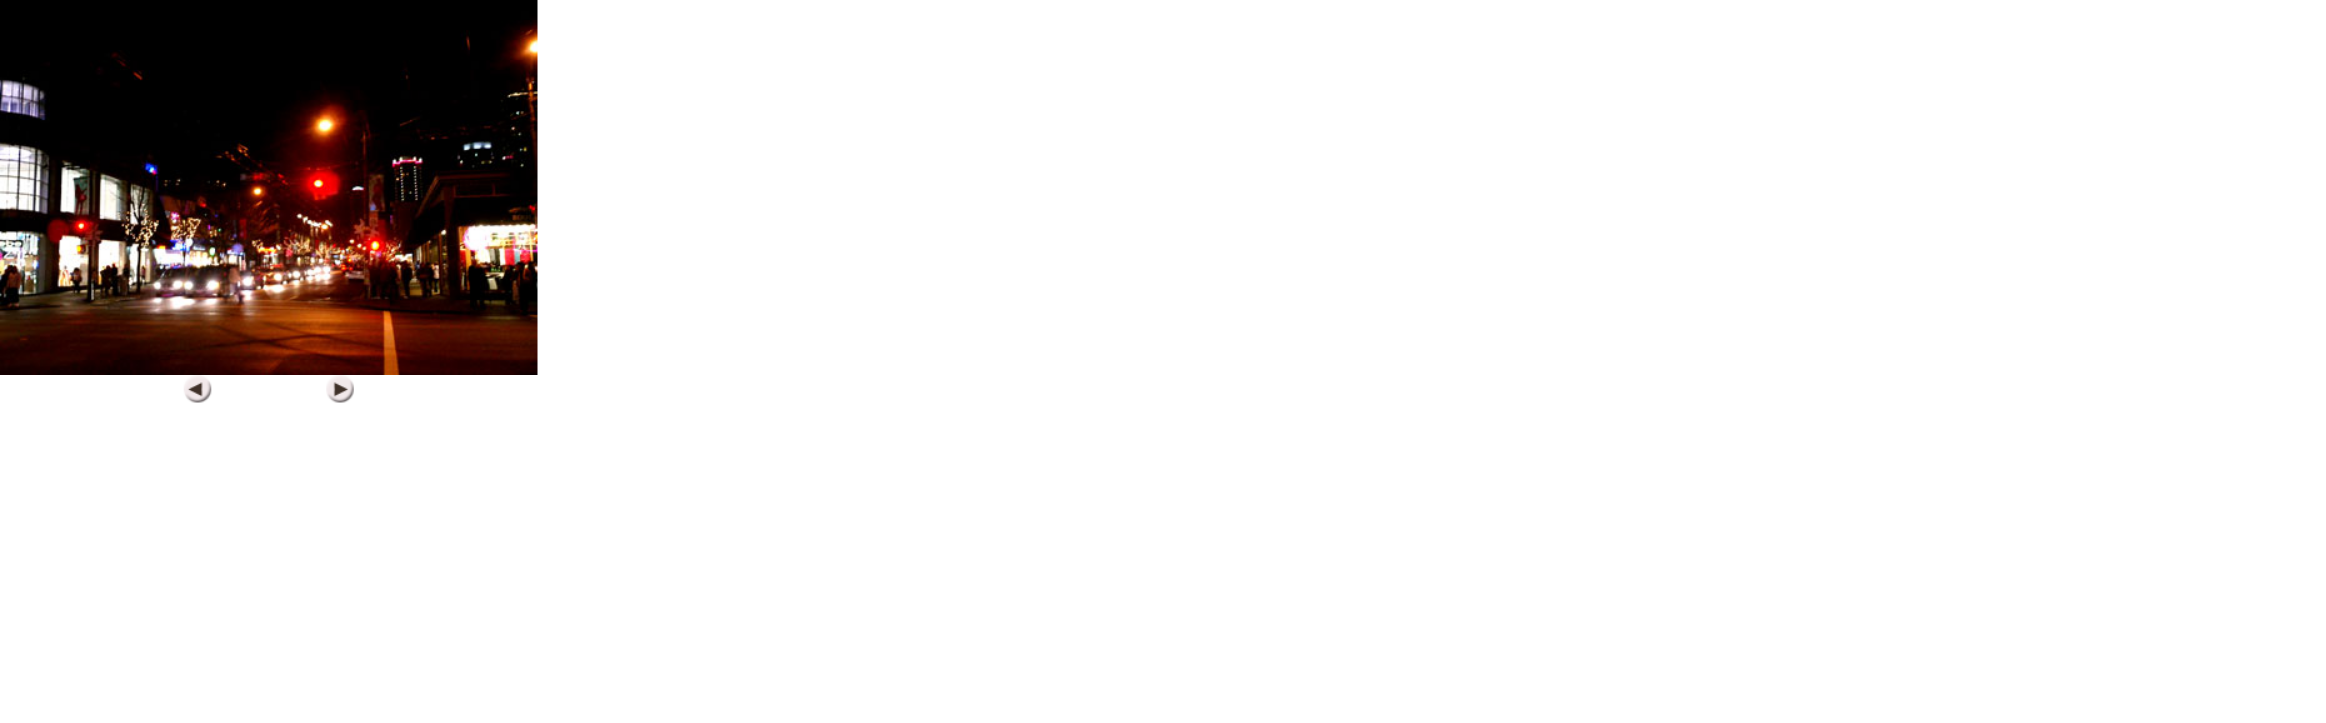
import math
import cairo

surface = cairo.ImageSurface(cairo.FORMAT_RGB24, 2326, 723)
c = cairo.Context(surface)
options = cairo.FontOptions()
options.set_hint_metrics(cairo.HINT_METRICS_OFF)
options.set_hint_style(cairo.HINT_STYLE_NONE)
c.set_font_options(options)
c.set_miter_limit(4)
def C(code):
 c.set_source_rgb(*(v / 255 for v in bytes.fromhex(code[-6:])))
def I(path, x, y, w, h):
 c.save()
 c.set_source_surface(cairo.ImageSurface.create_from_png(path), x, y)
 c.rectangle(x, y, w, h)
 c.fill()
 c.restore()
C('ffffff')
c.paint()
I('1.png',0,0,538,375)
I('2.png',183,375,29,28)
I('3.png',326,375,28,28)
surface.write_to_png('o.png')
